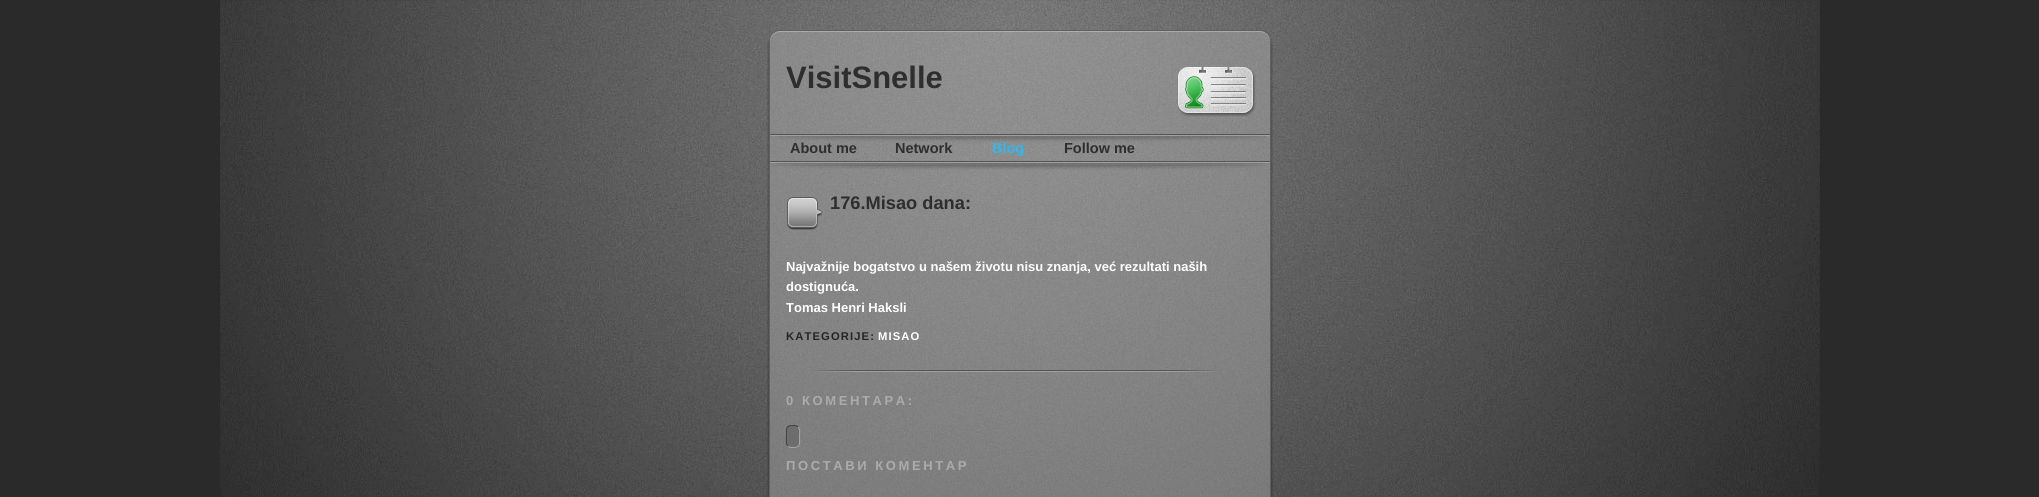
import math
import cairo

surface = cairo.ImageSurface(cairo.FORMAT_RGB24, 2039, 497)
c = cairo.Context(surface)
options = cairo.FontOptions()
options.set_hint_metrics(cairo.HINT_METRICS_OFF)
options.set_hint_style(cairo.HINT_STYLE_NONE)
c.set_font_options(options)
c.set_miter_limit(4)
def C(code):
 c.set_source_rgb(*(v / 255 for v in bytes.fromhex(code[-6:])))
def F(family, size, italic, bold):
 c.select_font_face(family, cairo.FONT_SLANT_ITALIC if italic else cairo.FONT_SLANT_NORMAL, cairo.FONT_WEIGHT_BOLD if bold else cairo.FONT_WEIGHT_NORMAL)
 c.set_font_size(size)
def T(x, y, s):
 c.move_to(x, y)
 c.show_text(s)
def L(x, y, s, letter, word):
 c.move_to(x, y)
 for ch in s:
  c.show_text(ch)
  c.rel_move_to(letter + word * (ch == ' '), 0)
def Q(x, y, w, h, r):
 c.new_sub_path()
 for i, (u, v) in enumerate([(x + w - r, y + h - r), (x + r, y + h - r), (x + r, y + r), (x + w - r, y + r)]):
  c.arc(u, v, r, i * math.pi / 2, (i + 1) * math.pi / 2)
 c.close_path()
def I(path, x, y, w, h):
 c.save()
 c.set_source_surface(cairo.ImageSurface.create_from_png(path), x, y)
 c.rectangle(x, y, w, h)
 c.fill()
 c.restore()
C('2a2a2a')
c.paint()
I('1.png',220,0,1600,497)
I('2.png',767,30,506,104)
F('Liberation Sans',31,0,1)
C('2e2e2e')
T(786,88,'VisitSnelle')
I('3.png',1177,67,79,50)
I('4.png',767,134,506,363)
I('5.png',770,134,500,36)
F('Liberation Sans',14.5,0,1)
T(790,153,'About me')
T(895,153,'Network')
C('32b7ec')
T(992,153,'Blog')
C('2e2e2e')
T(1064,153,'Follow me')
I('6.png',812,370,405,2)
I('7.png',787,197,36,33)
F('Liberation Sans',18.25,0,1)
T(830,209,'176.Misao dana:')
F('Liberation Sans',13,0,1)
C('ffffff')
T(786,271,'Najvažnije bogatstvo u našem životu nisu znanja, već rezultati naših')
T(786,291,'dostignuća.')
T(786,312,'Tomas Henri Haksli')
F('Liberation Sans',11.25,0,1)
C('252525')
L(786,340,'KATEGORIJE:',1.1,0)
C('ffffff')
L(878,340,'MISAO',1.1,0)
F('Liberation Sans',13,0,1)
C('acabab')
L(786,405,'0 КОМЕНТАРА:',2.6,0)
C('6d6d6d')
Q(786,425,14,23,5)
c.fill()
c.new_path()
c.move_to(798,427)
c.curve_to(800.5,429,799.5,433.5,799.5,436.5)
c.curve_to(799.5,444,801,447.5,792.5,447.5)
c.curve_to(791,447.5,789,447.5,788,446)
C('a8a8a8')
c.set_line_width(1)
c.stroke()
c.new_path()
c.move_to(788,446)
c.curve_to(785.5,444,786.5,439.5,786.5,436.5)
c.curve_to(786.5,429,785,425.5,793.5,425.5)
c.curve_to(795,425.5,797,425.5,798,427)
C('414141')
c.stroke()
C('acabab')
L(786,470,'ПОСТАВИ КОМЕНТАР',2.6,0)
surface.write_to_png('o.png')
